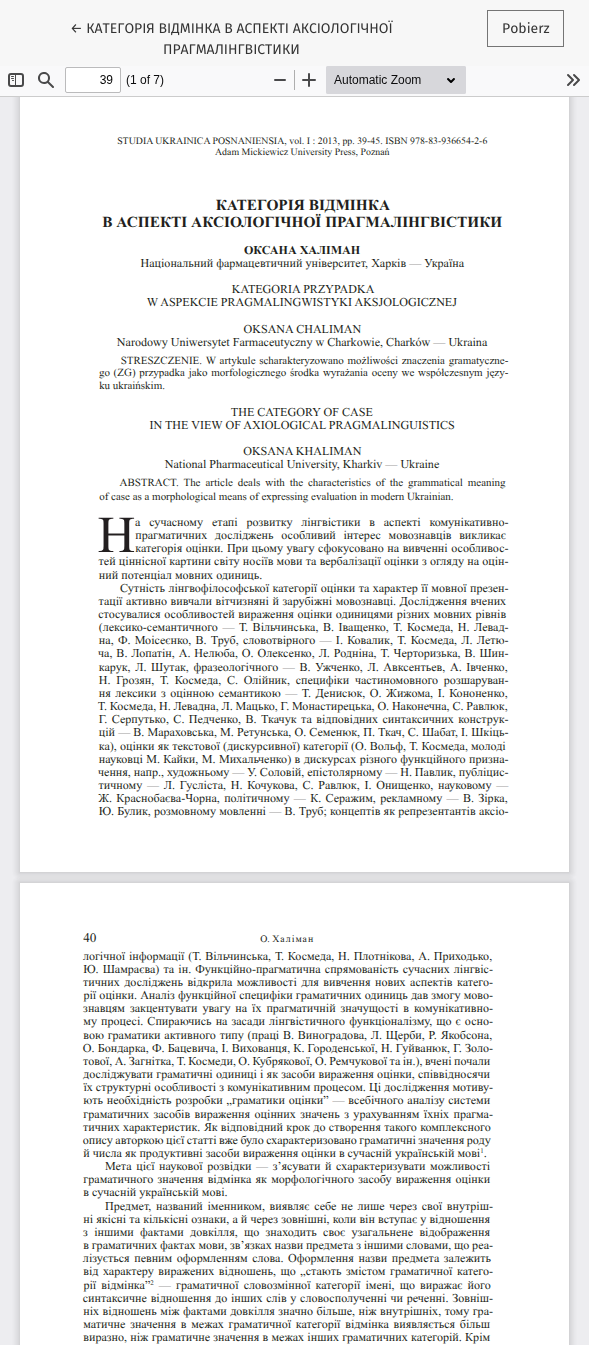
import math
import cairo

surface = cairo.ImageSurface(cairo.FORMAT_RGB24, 589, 1345)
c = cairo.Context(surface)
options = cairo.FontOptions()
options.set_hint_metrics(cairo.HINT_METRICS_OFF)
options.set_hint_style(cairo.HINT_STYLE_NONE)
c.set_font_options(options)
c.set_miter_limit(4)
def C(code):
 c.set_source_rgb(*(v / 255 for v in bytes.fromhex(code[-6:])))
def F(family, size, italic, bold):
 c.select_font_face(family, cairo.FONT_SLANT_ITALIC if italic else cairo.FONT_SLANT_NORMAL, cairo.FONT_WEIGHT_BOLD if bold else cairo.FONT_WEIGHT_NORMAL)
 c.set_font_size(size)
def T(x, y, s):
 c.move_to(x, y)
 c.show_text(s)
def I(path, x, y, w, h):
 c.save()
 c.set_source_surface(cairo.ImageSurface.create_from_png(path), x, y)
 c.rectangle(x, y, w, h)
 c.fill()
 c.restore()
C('f7f7f7')
c.paint()
F('Fira Sans',14,0,0)
C('333333')
T(70,33,'← КАТЕГОРІЯ ВІДМІНКА В АСПЕКТІ АКСІОЛОГІЧНОЇ')
T(163,54,'ПРАГМАЛІНГВІСТИКИ')
c.rectangle(487.5,10.5,76,36)
C('757575')
c.set_line_width(1)
c.stroke()
C('333333')
T(502,33,'Pobierz')
I('1.png',0,66,589,1279)
surface.write_to_png('o.png')
